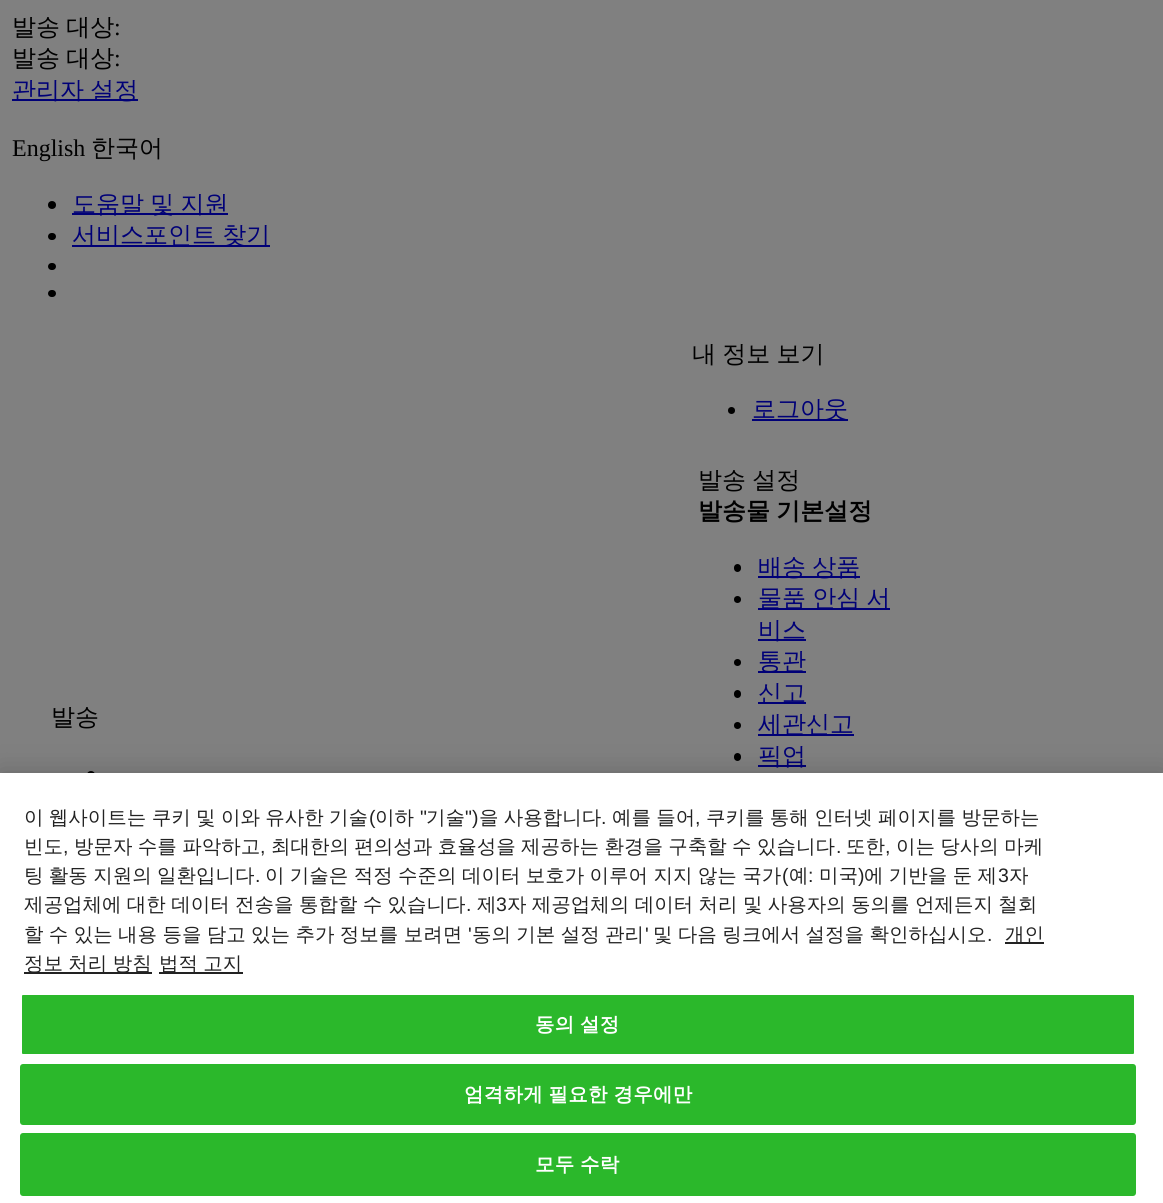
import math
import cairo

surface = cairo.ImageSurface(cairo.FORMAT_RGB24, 1163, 1203)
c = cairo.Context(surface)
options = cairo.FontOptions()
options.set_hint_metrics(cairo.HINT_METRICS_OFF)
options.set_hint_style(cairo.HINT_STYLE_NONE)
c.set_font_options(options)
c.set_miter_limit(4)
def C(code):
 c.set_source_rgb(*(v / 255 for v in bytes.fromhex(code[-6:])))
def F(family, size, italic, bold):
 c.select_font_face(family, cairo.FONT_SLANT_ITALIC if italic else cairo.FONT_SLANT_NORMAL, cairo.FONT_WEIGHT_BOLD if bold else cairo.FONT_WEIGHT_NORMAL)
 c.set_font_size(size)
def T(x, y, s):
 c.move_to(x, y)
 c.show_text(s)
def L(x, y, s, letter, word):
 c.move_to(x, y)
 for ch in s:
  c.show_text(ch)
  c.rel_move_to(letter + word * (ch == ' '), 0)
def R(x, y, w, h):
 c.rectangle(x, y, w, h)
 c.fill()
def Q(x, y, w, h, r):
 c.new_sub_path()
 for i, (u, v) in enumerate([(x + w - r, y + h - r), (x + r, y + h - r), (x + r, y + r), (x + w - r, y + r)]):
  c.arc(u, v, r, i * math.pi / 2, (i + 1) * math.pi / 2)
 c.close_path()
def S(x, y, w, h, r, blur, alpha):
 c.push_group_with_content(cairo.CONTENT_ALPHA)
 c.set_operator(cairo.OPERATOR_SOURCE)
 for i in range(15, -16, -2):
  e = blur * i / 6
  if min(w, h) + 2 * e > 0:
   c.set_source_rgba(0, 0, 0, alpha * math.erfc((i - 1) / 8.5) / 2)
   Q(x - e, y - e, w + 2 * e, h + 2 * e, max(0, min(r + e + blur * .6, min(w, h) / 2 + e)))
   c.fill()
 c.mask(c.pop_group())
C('808080')
c.paint()
F('WenQuanYi Zen Hei Medium',24,0,0)
C('000000')
L(12,35,'발송 대상',0,-1)
F('Liberation Serif',24,0,0)
T(114,35,':')
F('WenQuanYi Zen Hei Medium',24,0,0)
L(12,66,'발송 대상',0,-1)
F('Liberation Serif',24,0,0)
T(114,66,':')
C('000077')
R(12,99,126,2)
F('WenQuanYi Zen Hei Medium',24,0,0)
L(12,98,'관리자 설정',0,-1)
F('Liberation Serif',24,0,0)
C('000000')
T(12,156,'English')
F('WenQuanYi Zen Hei Medium',24,0,0)
T(91,156,'한국어')
c.new_path()
c.arc(52,205,4,0,2 * math.pi)
c.fill()
C('000077')
R(72,213,156,2)
L(72,212,'도움말 및 지원',0,-1)
C('000000')
Q(48,233,8,7,3.5)
c.fill()
C('000077')
R(72,245,198,2)
L(72,243,'서비스포인트 찾기',0,-1)
C('000000')
Q(48,263,8,7,3.5)
c.fill()
Q(48,290,8,7,3.5)
c.fill()
L(692,362,'내 정보 보기',0,-1)
c.new_path()
c.arc(731.5,410.5,3.5,0,2 * math.pi)
c.fill()
C('000077')
R(752,419,96,2)
T(752,417,'로그아웃')
C('000000')
T(51,725,'발송')
c.new_path()
c.arc(91,775,4,0,2 * math.pi)
c.fill()
L(698,488,'발송 설정',0,-1)
F('WenQuanYi Zen Hei',24,0,1)
L(698,519,'발송물 기본설정',0,-1)
Q(734,564,7,8,3.5)
c.fill()
C('000077')
R(758,576,102,2)
F('WenQuanYi Zen Hei Medium',24,0,0)
L(758,575,'배송 상품',0,-1)
C('000000')
c.new_path()
c.arc(737.5,599.5,3.5,0,2 * math.pi)
c.fill()
C('000077')
R(758,608,132,2)
L(758,606,'물품 안심 서',0,-1)
R(758,639,48,2)
T(758,638,'비스')
C('000000')
c.new_path()
c.arc(737.5,662.5,3.5,0,2 * math.pi)
c.fill()
C('000077')
R(758,671,48,2)
T(758,669,'통관')
C('000000')
Q(734,690,7,8,3.5)
c.fill()
C('000077')
R(758,702,48,2)
T(758,701,'신고')
C('000000')
c.new_path()
c.arc(737.5,725.5,3.5,0,2 * math.pi)
c.fill()
C('000077')
R(758,734,96,2)
T(758,732,'세관신고')
C('000000')
Q(734,753,7,8,3.5)
c.fill()
C('000077')
R(758,765,48,2)
T(758,764,'픽업')
C('000000')
S(0,773,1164,430,0,13.5,.2)
C('ffffff')
R(0,773,1163,430)
F('WenQuanYi Zen Hei Medium',19.5,0,0)
C('222222')
L(24,824,'이 웹사이트는 쿠키 및 이와 유사한 기술',0,-.5)
F('Liberation Sans',19.5,0,0)
T(369,824,'(')
F('WenQuanYi Zen Hei Medium',19.5,0,0)
T(375,824,'이하')
F('Liberation Sans',19.5,0,0)
T(420,824,'"')
F('WenQuanYi Zen Hei Medium',19.5,0,0)
T(426,824,'기술')
F('Liberation Sans',19.5,0,0)
T(465,824,'")')
F('WenQuanYi Zen Hei Medium',19.5,0,0)
L(479,824,'을 사용합니다',0,-.5)
L(612,824,'예를 들어',0,-.5)
L(706,824,'쿠키를 통해 인터넷 페이지를 방문하는',0,-.5)
F('Liberation Sans',19.5,0,0)
T(601,824,'.')
T(695,824,',')
F('WenQuanYi Zen Hei Medium',19.5,0,0)
T(24,853,'빈도')
F('Liberation Sans',19.5,0,0)
T(63,853,',')
F('WenQuanYi Zen Hei Medium',19.5,0,0)
L(74,853,'방문자 수를 파악하고',0,-.5)
F('Liberation Sans',19.5,0,0)
T(260,853,',')
F('WenQuanYi Zen Hei Medium',19.5,0,0)
L(271,853,'최대한의 편의성과 효율성을 제공하는 환경을 구축할 수 있습니다',0,-.5)
F('Liberation Sans',19.5,0,0)
T(836,853,'.')
F('WenQuanYi Zen Hei Medium',19.5,0,0)
T(846,853,'또한')
F('Liberation Sans',19.5,0,0)
T(885,853,',')
F('WenQuanYi Zen Hei Medium',19.5,0,0)
L(896,853,'이는 당사의 마케',0,-.5)
L(24,882,'팅 활동 지원의 일환입니다',0,-.5)
F('Liberation Sans',19.5,0,0)
T(255,882,'.')
F('WenQuanYi Zen Hei Medium',19.5,0,0)
L(265,882,'이 기술은 적정 수준의 데이터 보호가 이루어 지지 않는 국가',0,-.5)
F('Liberation Sans',19.5,0,0)
T(782,882,'(')
F('WenQuanYi Zen Hei Medium',19.5,0,0)
T(789,882,'예')
F('Liberation Sans',19.5,0,0)
T(808,882,':')
F('WenQuanYi Zen Hei Medium',19.5,0,0)
T(819,882,'미국')
F('Liberation Sans',19.5,0,0)
T(858,882,')')
F('WenQuanYi Zen Hei Medium',19.5,0,0)
L(864,882,'에 기반을 둔 제',0,-.5)
F('Liberation Sans',19.5,0,0)
T(998,882,'3')
F('WenQuanYi Zen Hei Medium',19.5,0,0)
T(1009,882,'자')
L(24,911,'제공업체에 대한 데이터 전송을 통합할 수 있습니다',0,-.5)
F('Liberation Sans',19.5,0,0)
T(466,911,'.')
F('WenQuanYi Zen Hei Medium',19.5,0,0)
T(477,911,'제')
F('Liberation Sans',19.5,0,0)
T(496,911,'3')
F('WenQuanYi Zen Hei Medium',19.5,0,0)
L(507,911,'자 제공업체의 데이터 처리 및 사용자의 동의를 언제든지 철회',0,-.5)
L(24,941,'할 수 있는 내용 등을 담고 있는 추가 정보를 보려면',0,-.5)
F('Liberation Sans',19.5,0,0)
T(468,941,'\'')
F('WenQuanYi Zen Hei Medium',19.5,0,0)
L(472,941,'동의 기본 설정 관리',0,-.5)
F('Liberation Sans',19.5,0,0)
T(645,941,'\'')
F('WenQuanYi Zen Hei Medium',19.5,0,0)
L(653,941,'및 다음 링크에서 설정을 확인하십시오',0,-.5)
R(1005,942,39,2)
T(1005,941,'개인')
F('Liberation Sans',19.5,0,0)
T(987,941,'.')
R(24,972,128,2)
F('WenQuanYi Zen Hei Medium',19.5,0,0)
L(24,970,'정보 처리 방침',0,-.5)
R(159,972,84,2)
L(159,970,'법적 고지',0,-.5)
C('2bb82b')
Q(21,994,1114,61,2)
c.fill_preserve()
C('ffffff')
c.stroke()
F('WenQuanYi Zen Hei',19.5,0,1)
L(535,1031,'동의 설정',.25,-.5)
C('2bb82b')
Q(21,1065,1114,59,2)
c.fill_preserve()
c.stroke()
C('ffffff')
L(464,1101,'엄격하게 필요한 경우에만',.25,-.5)
C('2bb82b')
Q(21,1134,1114,61,2)
c.fill_preserve()
c.stroke()
C('ffffff')
L(535,1171,'모두 수락',.25,-.5)
surface.write_to_png('o.png')
